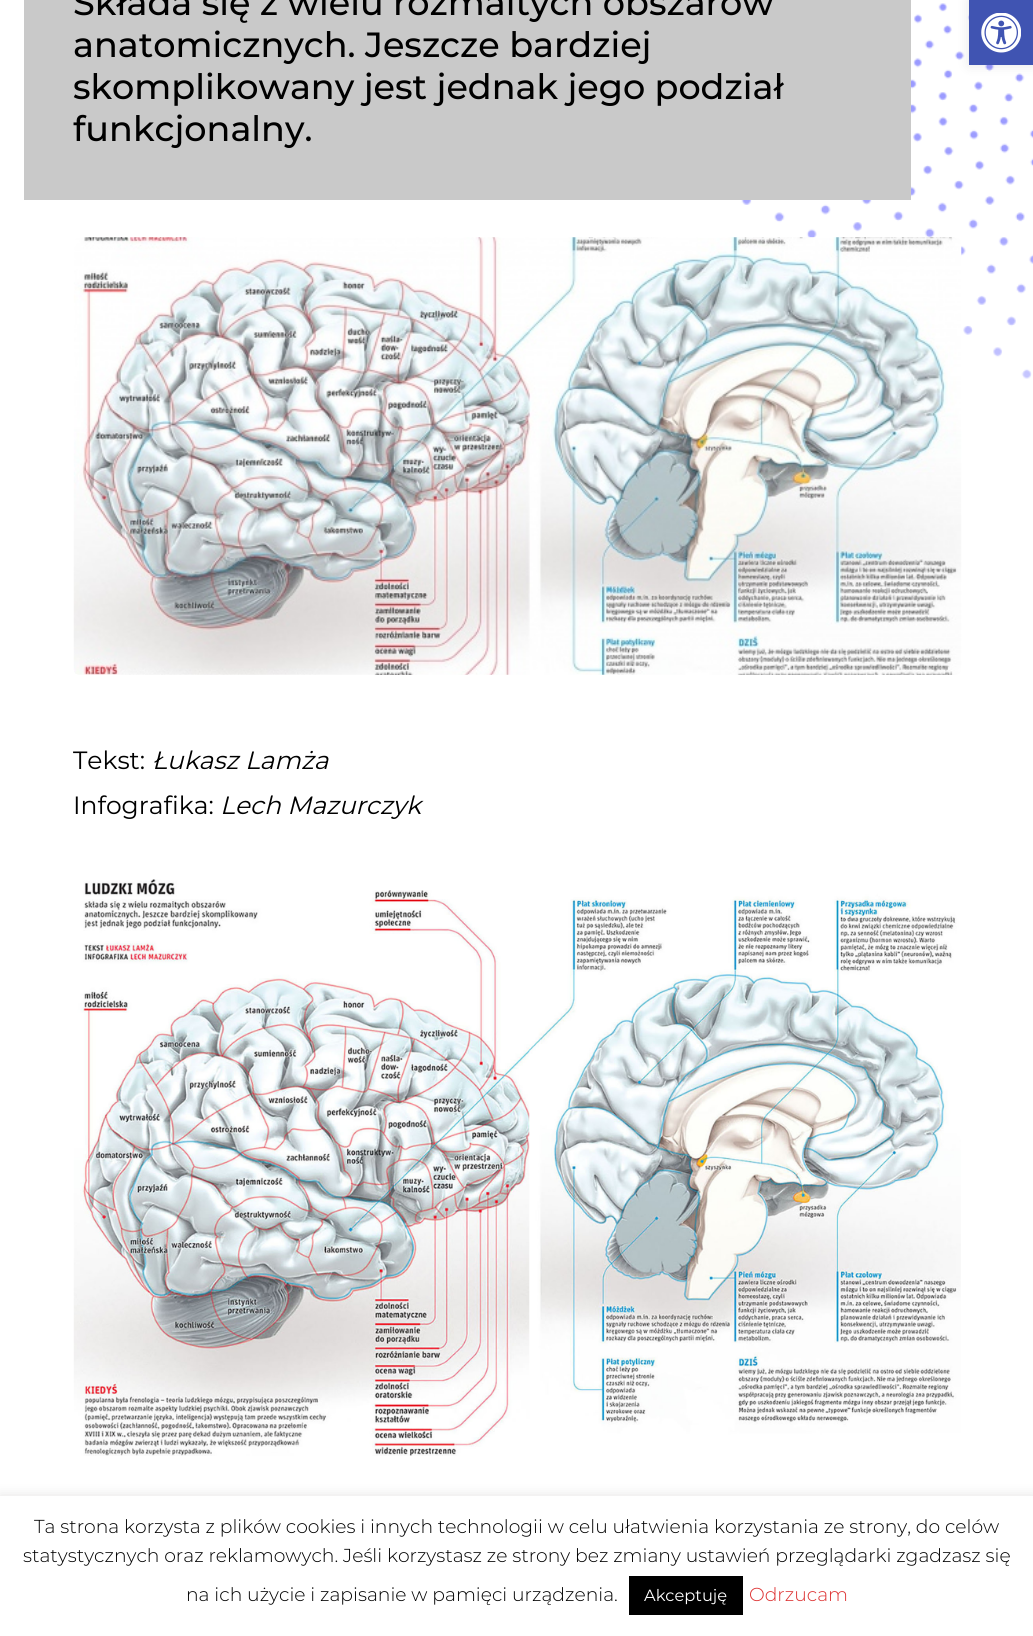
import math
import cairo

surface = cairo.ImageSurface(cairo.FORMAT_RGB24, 1033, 1636)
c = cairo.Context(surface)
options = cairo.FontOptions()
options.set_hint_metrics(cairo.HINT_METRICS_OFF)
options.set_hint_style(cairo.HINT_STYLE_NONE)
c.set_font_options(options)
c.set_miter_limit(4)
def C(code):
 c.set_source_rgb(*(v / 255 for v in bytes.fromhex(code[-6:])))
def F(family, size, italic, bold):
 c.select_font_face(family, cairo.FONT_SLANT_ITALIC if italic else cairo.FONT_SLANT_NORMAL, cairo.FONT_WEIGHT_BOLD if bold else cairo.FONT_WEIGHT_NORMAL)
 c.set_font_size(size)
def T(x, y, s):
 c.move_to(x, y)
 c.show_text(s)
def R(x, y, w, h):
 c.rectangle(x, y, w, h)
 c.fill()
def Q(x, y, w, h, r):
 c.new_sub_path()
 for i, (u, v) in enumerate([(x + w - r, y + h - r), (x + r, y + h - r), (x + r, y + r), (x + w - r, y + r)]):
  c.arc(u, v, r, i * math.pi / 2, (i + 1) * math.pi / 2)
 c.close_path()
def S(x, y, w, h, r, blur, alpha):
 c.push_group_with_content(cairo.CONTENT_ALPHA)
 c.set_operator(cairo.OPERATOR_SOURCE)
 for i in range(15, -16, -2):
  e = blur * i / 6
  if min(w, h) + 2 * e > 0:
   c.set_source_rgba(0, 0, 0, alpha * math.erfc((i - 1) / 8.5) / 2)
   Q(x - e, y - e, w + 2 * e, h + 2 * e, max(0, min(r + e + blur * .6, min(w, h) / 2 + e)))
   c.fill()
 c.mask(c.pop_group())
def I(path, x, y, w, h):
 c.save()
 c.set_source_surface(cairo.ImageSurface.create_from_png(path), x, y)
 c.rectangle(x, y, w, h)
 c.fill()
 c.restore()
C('ffffff')
c.paint()
I('3.png',741,3,292,376)
C('c9c9c9')
R(24,0,887,200)
F('Montserrat Medium',35,0,0)
C('000000')
T(73,15,'Składa się z wielu rozmaitych obszarów')
T(73,57,'anatomicznych. Jeszcze bardziej')
T(73,99,'skomplikowany jest jednak jego podział')
T(73,141,'funkcjonalny.')
I('1.png',73,237,889,438)
F('Montserrat',25,0,0)
T(73,769,'Tekst:')
F('Montserrat',25,1,0)
T(152,769,'Łukasz Lamża')
F('Montserrat',25,0,0)
T(73,814,'Infografika:')
F('Montserrat',25,1,0)
T(220,814,'Lech Mazurczyk')
I('2.png',73,879,888,577)
C('000000')
S(969,0,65,65,0,6,.1)
C('4054b2')
R(969,0,64,65)
I('4.png',981,13,40,40)
C('acabab')
S(0,1495,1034,140,0,6,.3)
C('ffffff')
R(0,1496,1033,140)
F('Montserrat Light',18.75,0,0)
C('000000')
T(34,1533,'Ta strona korzysta z plików cookies i innych technologii w celu ułatwienia korzystania ze strony, do celów')
T(23,1562,'statystycznych oraz reklamowych. Jeśli korzystasz ze strony bez zmiany ustawień przeglądarki zgadzasz się')
T(186,1601,'na ich użycie i zapisanie w pamięci urządzenia.')
R(629,1576,114,39)
F('Montserrat',16.25,0,0)
C('ffffff')
T(644,1601,'Akceptuję')
F('Montserrat Light',18.75,0,0)
C('dd3333')
T(749,1601,'Odrzucam')
surface.write_to_png('o.png')
